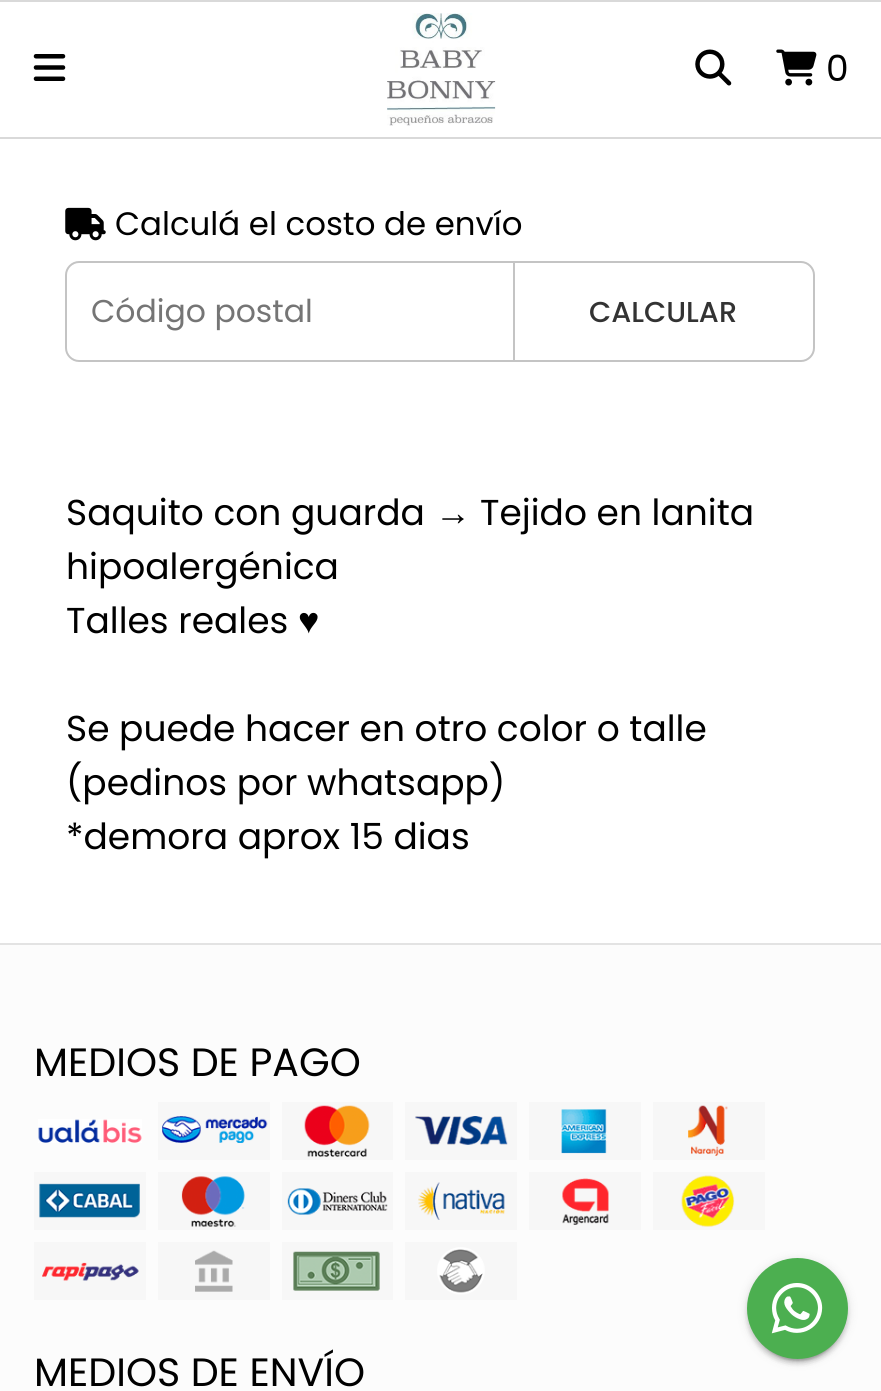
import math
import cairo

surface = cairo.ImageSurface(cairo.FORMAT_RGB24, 881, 1391)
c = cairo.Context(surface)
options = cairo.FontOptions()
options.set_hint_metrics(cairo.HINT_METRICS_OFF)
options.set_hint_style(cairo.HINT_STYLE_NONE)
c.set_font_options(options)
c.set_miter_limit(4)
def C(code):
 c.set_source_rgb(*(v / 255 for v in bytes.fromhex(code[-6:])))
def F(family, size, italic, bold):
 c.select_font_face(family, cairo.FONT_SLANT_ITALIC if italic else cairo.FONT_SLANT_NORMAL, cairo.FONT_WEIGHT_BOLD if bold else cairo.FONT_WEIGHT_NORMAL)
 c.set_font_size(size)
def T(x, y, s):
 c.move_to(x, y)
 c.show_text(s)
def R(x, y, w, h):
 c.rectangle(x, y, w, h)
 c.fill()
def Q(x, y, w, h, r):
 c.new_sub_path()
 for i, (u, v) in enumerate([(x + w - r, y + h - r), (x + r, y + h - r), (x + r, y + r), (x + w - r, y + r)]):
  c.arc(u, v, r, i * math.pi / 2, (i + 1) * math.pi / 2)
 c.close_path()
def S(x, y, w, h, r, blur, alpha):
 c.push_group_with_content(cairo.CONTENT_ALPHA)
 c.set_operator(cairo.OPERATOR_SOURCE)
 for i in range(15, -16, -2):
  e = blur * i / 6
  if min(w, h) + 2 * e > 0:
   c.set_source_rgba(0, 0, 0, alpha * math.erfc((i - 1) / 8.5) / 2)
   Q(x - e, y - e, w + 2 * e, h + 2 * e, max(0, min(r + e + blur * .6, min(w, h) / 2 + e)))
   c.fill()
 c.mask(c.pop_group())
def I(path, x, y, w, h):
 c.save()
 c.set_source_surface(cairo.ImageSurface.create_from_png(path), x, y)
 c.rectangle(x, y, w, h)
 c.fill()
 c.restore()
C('ffffff')
c.paint()
C('d9d9d9')
R(0,0,881,2)
R(0,137,881,2)
I('1.png',33,54,33,27)
I('2.png',387,13,109,113)
I('3.png',695,49,37,37)
I('4.png',776,49,41,37)
F('Poppins',36,0,0)
C('000000')
T(826,81,'0')
I('5.png',65,207,41,34)
F('Poppins',32.4,0,0)
T(115,235,'Calculá el costo de envío')
c.new_path()
c.move_to(79,262)
c.line_to(514,262)
c.line_to(514,361)
c.line_to(79,361)
c.curve_to(72,361,66,355,66,348)
c.line_to(66,275)
c.curve_to(66,268,72,262,79,262)
c.close_path()
C('c4c4c4')
c.stroke()
F('Poppins',31.5,0,0)
C('757575')
T(91,322,'Código postal')
C('ffffff')
c.new_path()
c.move_to(514,262)
c.line_to(801,262)
c.curve_to(808,262,814,268,814,275)
c.line_to(814,348)
c.curve_to(814,355,808,361,801,361)
c.line_to(514,361)
c.close_path()
c.fill_preserve()
C('c4c4c4')
c.stroke()
F('Poppins Medium',28.75,0,0)
C('333333')
T(589,322,'CALCULAR')
F('Poppins',36,0,0)
C('000000')
T(66,525,'Saquito con guarda')
F('Liberation Sans',36,0,0)
T(435,525,'→')
F('Poppins',36,0,0)
T(480,525,'Tejido en lanita')
T(66,579,'hipoalergénica')
T(66,633,'Talles reales')
F('Liberation Sans',36,0,0)
T(298,633,'♥')
F('Poppins',36,0,0)
T(66,741,'Se puede hacer en otro color o talle')
T(66,795,'(pedinos por whatsapp)')
T(66,849,'*demora aprox 15 dias')
C('fcfcfc')
R(0,945,881,446)
C('e3e3e3')
R(0,943,881,2)
F('Poppins',39.5,0,0)
C('000000')
T(34,1076,'MEDIOS DE PAGO')
I('6.png',38,1119,104,24)
I('7.png',158,1102,112,58)
I('8.png',282,1102,111,58)
I('9.png',405,1102,112,58)
I('10.png',529,1102,112,58)
I('11.png',653,1102,112,58)
I('12.png',34,1172,112,58)
I('13.png',158,1172,112,58)
I('14.png',282,1172,111,58)
I('15.png',405,1172,112,58)
I('16.png',529,1172,112,58)
I('17.png',653,1172,112,58)
I('18.png',34,1242,112,58)
I('19.png',158,1242,112,58)
I('20.png',282,1242,111,58)
I('21.png',405,1242,112,58)
T(34,1386,'MEDIOS DE ENVÍO')
C('000000')
S(752,1269,92,92,46,1,.2)
S(747,1260,101,101,50.5,5.5,.12)
S(747,1262,101,102,50.5,2,.14)
C('4caf50')
c.arc(797.5,1308.5,50.5,0,2 * math.pi)
c.fill()
I('22.png',771,1283,52,51)
surface.write_to_png('o.png')
